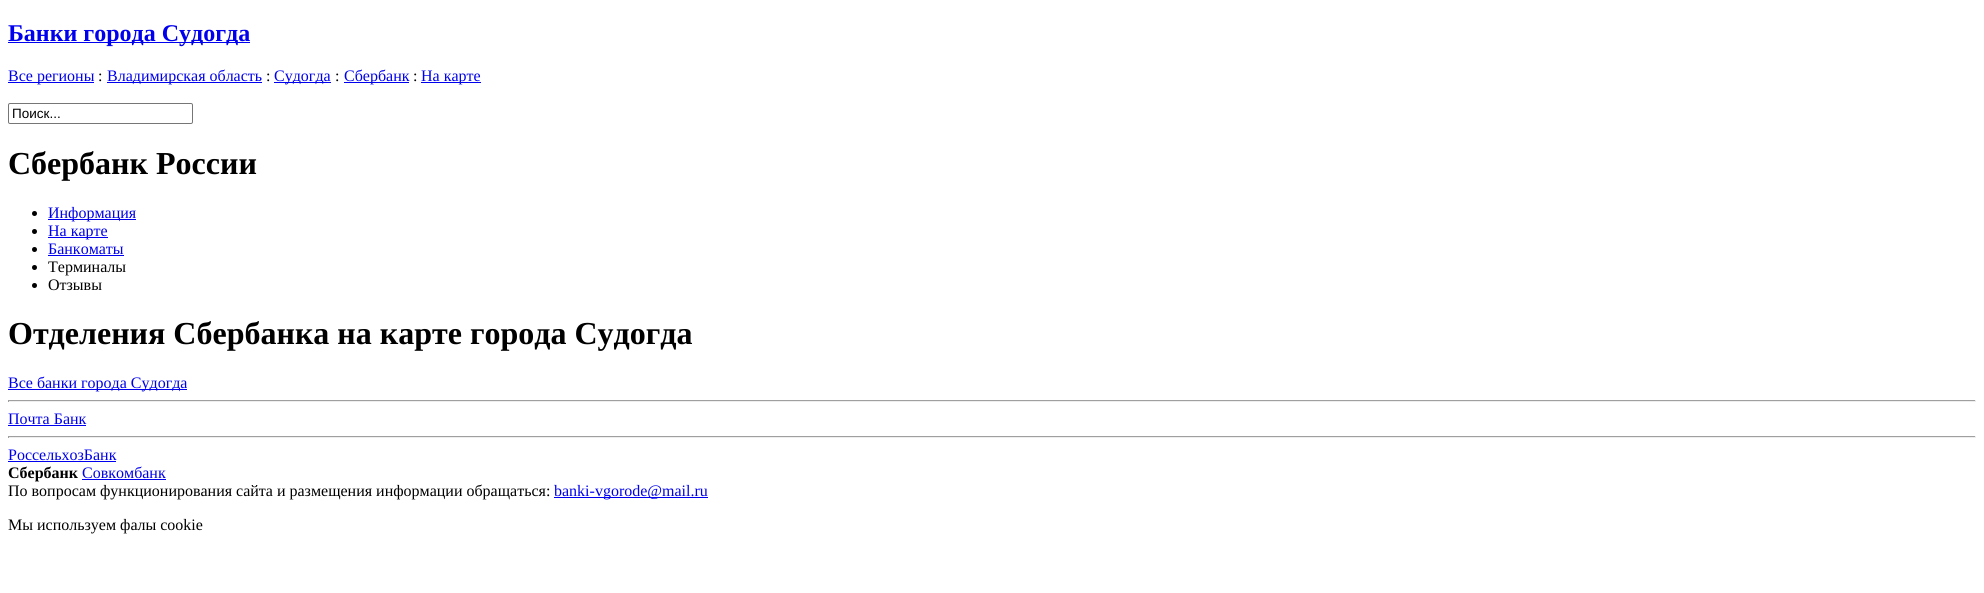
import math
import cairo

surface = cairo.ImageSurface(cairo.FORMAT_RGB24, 1984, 593)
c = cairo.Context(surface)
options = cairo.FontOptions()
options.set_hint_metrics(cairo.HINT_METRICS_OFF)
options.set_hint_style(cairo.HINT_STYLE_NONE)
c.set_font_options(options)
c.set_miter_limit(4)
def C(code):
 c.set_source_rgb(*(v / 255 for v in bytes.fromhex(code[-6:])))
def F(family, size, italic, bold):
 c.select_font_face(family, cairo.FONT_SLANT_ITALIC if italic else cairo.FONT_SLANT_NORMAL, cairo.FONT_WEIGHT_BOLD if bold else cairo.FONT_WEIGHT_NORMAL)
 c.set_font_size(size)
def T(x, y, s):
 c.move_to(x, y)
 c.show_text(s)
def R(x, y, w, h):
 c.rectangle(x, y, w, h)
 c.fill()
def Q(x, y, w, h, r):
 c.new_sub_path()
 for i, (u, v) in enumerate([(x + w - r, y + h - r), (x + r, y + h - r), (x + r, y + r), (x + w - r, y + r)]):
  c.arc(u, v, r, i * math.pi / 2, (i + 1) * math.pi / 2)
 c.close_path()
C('ffffff')
c.paint()
C('0000ee')
R(8,42,242,1)
F('Liberation Serif',24,0,1)
T(8,41,'Банки города Судогда')
R(8,82,86,1)
F('Liberation Serif',16,0,0)
T(8,81,'Все регионы')
C('000000')
T(98,81,':')
C('0000ee')
R(107,82,155,1)
T(107,81,'Владимирская область')
C('000000')
T(266,81,':')
C('0000ee')
R(274,82,57,1)
T(274,81,'Судогда')
C('000000')
T(335,81,':')
C('0000ee')
R(344,82,65,1)
T(344,81,'Сбербанк')
C('000000')
T(413,81,':')
C('0000ee')
R(421,82,60,1)
T(421,81,'На карте')
Q(8.5,103.5,184,20,1.5)
C('767676')
c.set_line_width(1)
c.stroke()
F('Liberation Sans',13.5,0,0)
C('000000')
T(12,118,'Поиск...')
F('Liberation Serif',32,0,1)
T(8,174,'Сбербанк России')
c.new_path()
c.arc(34.5,213.5,2.5,0,2 * math.pi)
c.fill()
C('0000ee')
R(48,219,88,1)
F('Liberation Serif',16,0,0)
T(48,218,'Информация')
C('000000')
c.new_path()
c.arc(34.5,231.5,2.5,0,2 * math.pi)
c.fill()
C('0000ee')
R(48,237,60,1)
T(48,236,'На карте')
C('000000')
c.new_path()
c.arc(34.5,249.5,2.5,0,2 * math.pi)
c.fill()
C('0000ee')
T(48,254,'Банкоматы')
R(48,255,76,1)
C('000000')
c.new_path()
c.arc(34.5,267.5,2.5,0,2 * math.pi)
c.fill()
T(48,272,'Терминалы')
c.new_path()
c.arc(34.5,285.5,2.5,0,2 * math.pi)
c.fill()
T(48,290,'Отзывы')
F('Liberation Serif',32,0,1)
T(8,344,'Отделения Сбербанка на карте города Судогда')
C('0000ee')
R(8,389,179,1)
F('Liberation Serif',16,0,0)
T(8,388,'Все банки города Судогда')
C('9f9f9f')
R(8,400,1968,1)
C('eeeeee')
R(1975,400,1,2)
R(8,401,1968,1)
C('9f9f9f')
R(8,400,1,2)
C('0000ee')
T(8,424,'Почта Банк')
R(8,425,78,1)
C('9f9f9f')
R(8,436,1968,1)
C('eeeeee')
R(1975,436,1,2)
R(8,437,1968,1)
C('9f9f9f')
R(8,436,1,2)
C('0000ee')
T(8,460,'РоссельхозБанк')
R(8,461,108,1)
F('Liberation Serif',16,0,1)
C('000000')
T(8,478,'Сбербанк')
F('Liberation Serif',16,0,0)
C('0000ee')
T(82,478,'Совкомбанк')
R(82,479,84,1)
C('000000')
T(8,496,'По вопросам функционирования сайта и размещения информации обращаться:')
C('0000ee')
R(554,497,154,1)
T(554,496,'banki-vgorode@mail.ru')
C('000000')
T(8,530,'Мы используем фалы cookie')
surface.write_to_png('o.png')
